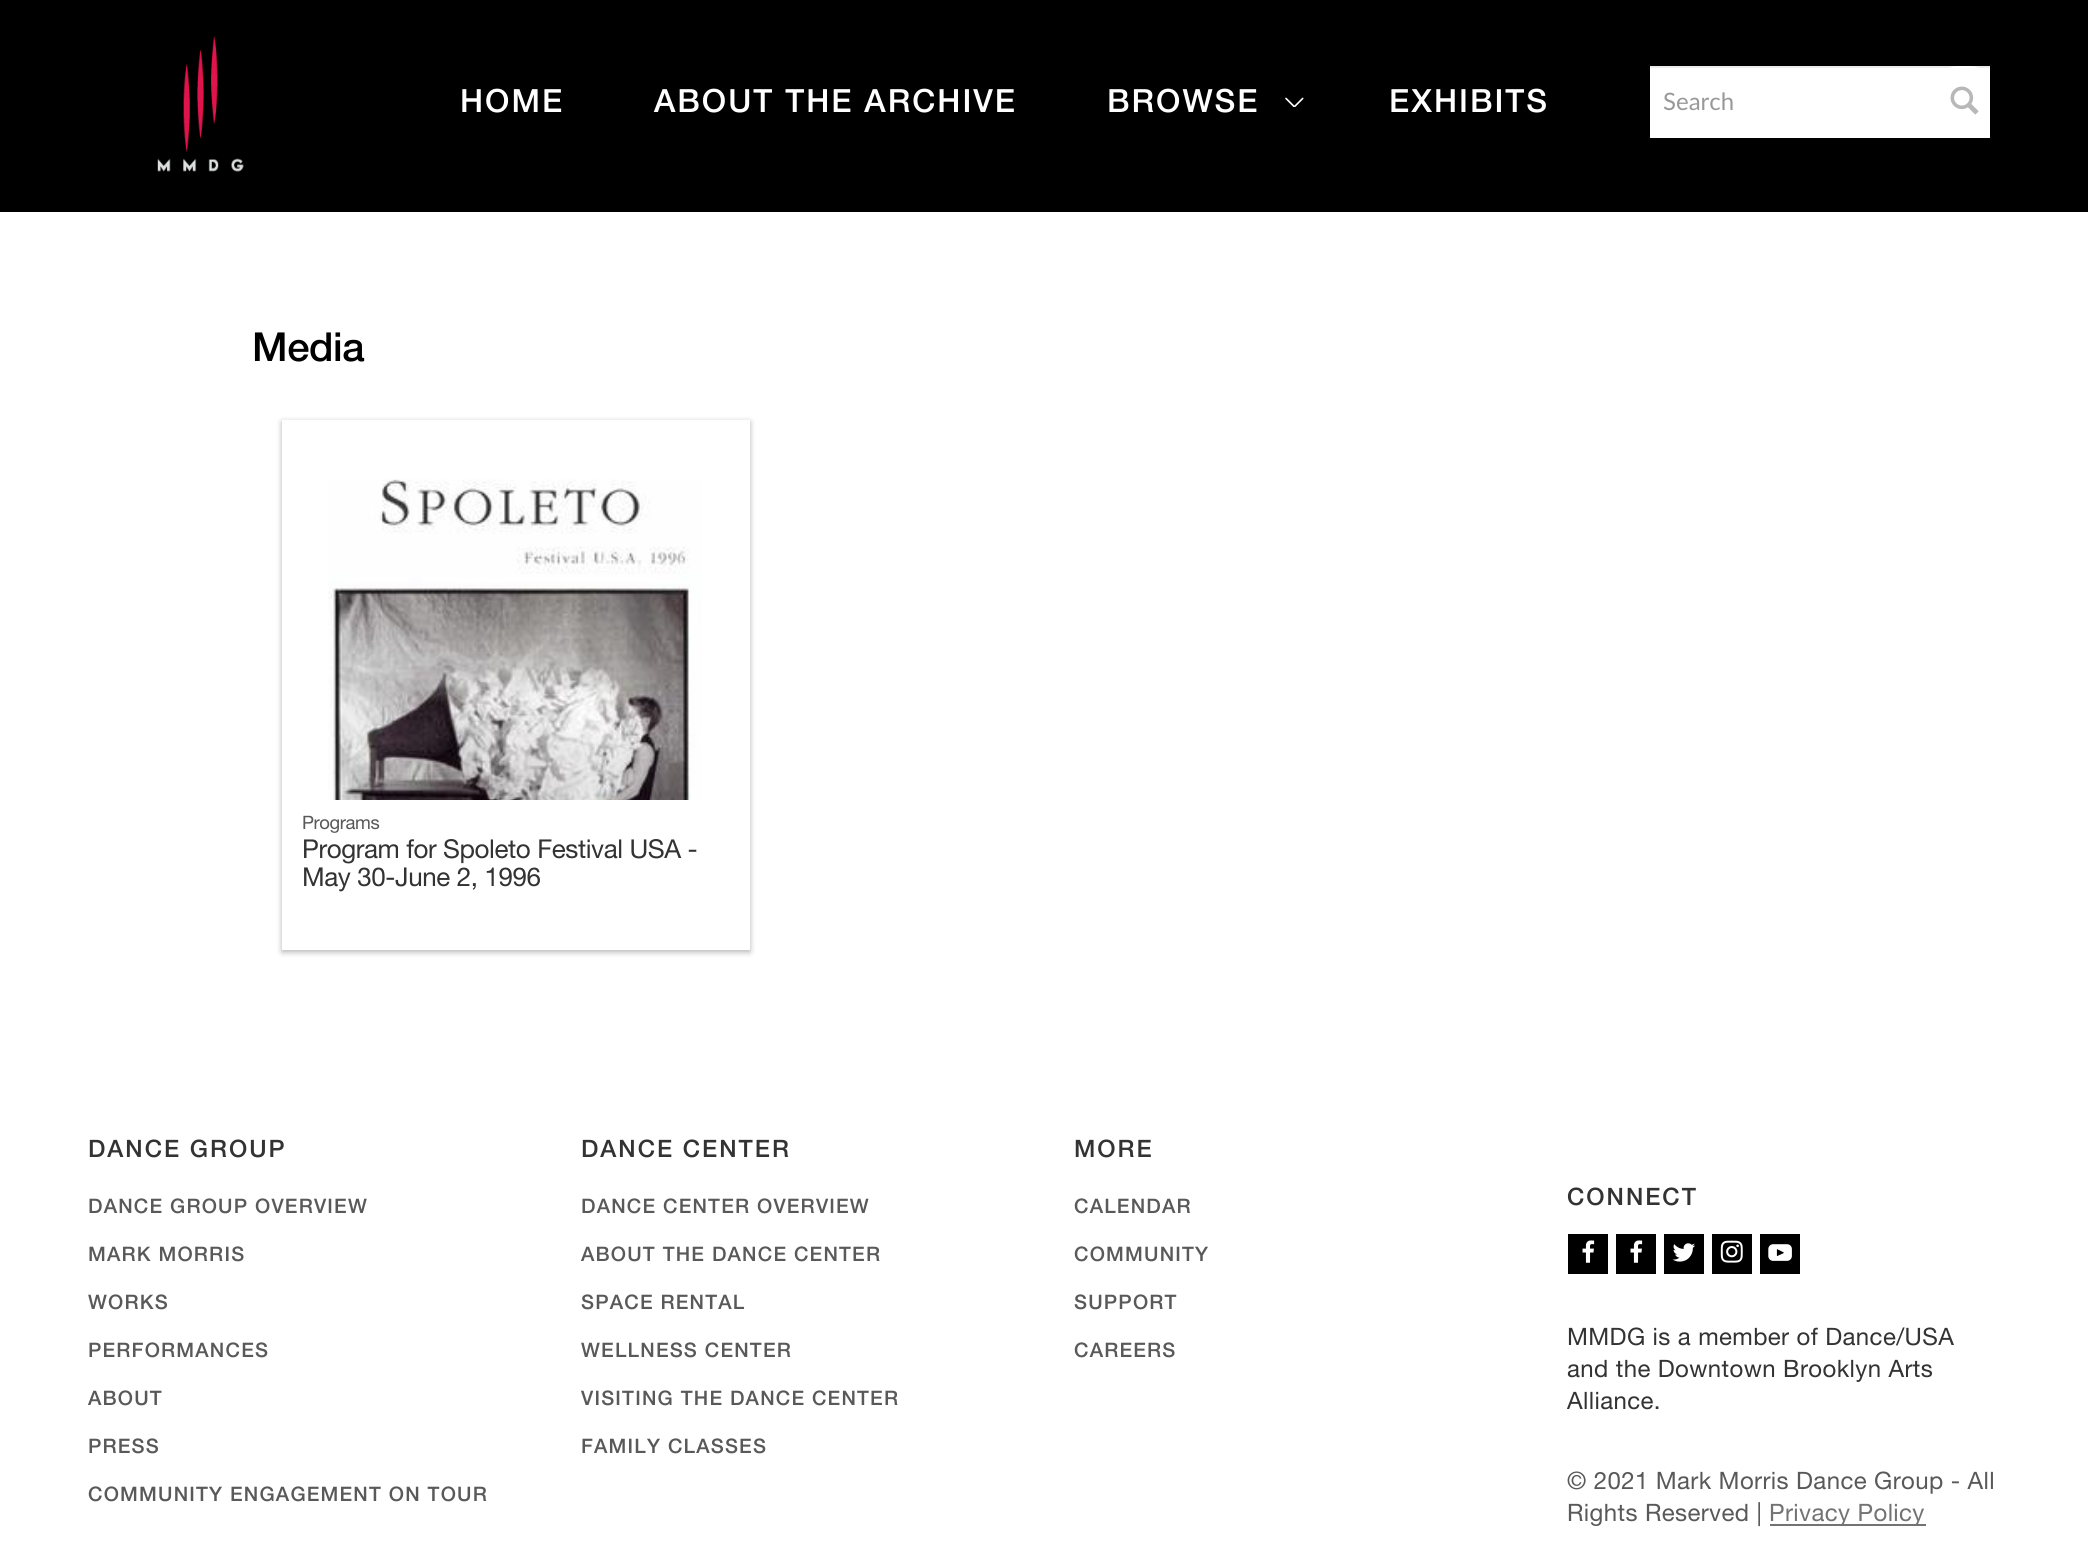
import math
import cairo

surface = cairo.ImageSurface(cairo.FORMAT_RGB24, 2088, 1543)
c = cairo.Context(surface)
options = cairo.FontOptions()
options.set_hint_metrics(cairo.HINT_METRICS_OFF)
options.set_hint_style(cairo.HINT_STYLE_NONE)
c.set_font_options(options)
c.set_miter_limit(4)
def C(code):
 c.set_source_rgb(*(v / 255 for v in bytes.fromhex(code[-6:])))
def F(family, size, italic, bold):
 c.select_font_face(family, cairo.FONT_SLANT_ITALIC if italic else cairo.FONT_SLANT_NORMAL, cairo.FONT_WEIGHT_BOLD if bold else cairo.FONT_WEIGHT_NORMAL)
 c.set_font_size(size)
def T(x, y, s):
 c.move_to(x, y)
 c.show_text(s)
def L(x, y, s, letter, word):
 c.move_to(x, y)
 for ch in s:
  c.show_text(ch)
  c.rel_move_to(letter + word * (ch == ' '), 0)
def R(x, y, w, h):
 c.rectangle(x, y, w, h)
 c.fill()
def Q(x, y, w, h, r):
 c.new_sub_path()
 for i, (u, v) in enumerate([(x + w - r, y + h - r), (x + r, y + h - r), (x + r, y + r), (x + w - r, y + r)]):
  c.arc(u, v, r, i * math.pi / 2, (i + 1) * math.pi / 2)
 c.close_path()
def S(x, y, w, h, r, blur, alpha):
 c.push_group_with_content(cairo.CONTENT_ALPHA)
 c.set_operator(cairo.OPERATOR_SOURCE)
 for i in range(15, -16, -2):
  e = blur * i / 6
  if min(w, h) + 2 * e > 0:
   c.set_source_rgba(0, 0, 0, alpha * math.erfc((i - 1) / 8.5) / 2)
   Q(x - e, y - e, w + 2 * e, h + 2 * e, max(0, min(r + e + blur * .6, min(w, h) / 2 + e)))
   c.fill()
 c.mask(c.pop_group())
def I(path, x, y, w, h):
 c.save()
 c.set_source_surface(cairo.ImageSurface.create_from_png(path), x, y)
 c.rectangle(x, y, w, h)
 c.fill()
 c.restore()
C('ffffff')
c.paint()
C('000000')
R(0,0,2088,212)
I('1.png',157,36,87,136)
F('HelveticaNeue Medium',32,0,0)
C('ffffff')
L(460,112,'HOME',2,0)
L(654,112,'ABOUT THE ARCHIVE',2,0)
L(1107,112,'BROWSE',2,0)
I('2.png',1285,97,19,10)
L(1389,112,'EXHIBITS',2,0)
R(1650,68,340,70)
C('ececec')
R(1650,66,340,2)
F('Lato',24,0,0)
C('999999')
T(1663,110,'Search')
C('ffffff')
Q(1938,66,52,72,20)
c.fill()
I('3.png',1950,86,29,29)
F('HelveticaNeue Medium',40,0,0)
C('000000')
L(252,361,'Media',-.4,0)
c.save()
c.set_fill_rule(cairo.FILL_RULE_EVEN_ODD)
c.new_path()
c.move_to(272,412)
c.line_to(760,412)
c.line_to(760,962)
c.line_to(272,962)
c.close_path()
c.move_to(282,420)
c.line_to(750,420)
c.line_to(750,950)
c.line_to(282,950)
c.close_path()
c.clip()
C('000000')
S(282,422,468,530,0,3,.3)
c.restore()
I('4.png',328,479,374,321)
F('Helvetica Neue',18.5,0,0)
C('595959')
L(302,829,'Programs',-.4,0)
F('Helvetica Neue',26,0,0)
C('333333')
L(302,858,'Program for Spoleto Festival USA -',-.4,0)
L(302,886,'May 30-June 2, 1996',-.4,0)
F('HelveticaNeue Medium',24,0,0)
L(88,1157,'DANCE GROUP',2,0)
F('HelveticaNeue Medium',20,0,0)
C('595959')
L(88,1213,'DANCE GROUP OVERVIEW',1.2,0)
L(88,1261,'MARK MORRIS',1.2,0)
L(88,1309,'WORKS',1.2,0)
L(88,1357,'PERFORMANCES',1.2,0)
L(88,1405,'ABOUT',1.2,0)
L(88,1453,'PRESS',1.2,0)
L(88,1501,'COMMUNITY ENGAGEMENT ON TOUR',1.2,0)
F('HelveticaNeue Medium',24,0,0)
C('333333')
L(581,1157,'DANCE CENTER',2,0)
F('HelveticaNeue Medium',20,0,0)
C('595959')
L(581,1213,'DANCE CENTER OVERVIEW',1.2,0)
L(581,1261,'ABOUT THE DANCE CENTER',1.2,0)
L(581,1309,'SPACE RENTAL',1.2,0)
L(581,1357,'WELLNESS CENTER',1.2,0)
L(581,1405,'VISITING THE DANCE CENTER',1.2,0)
L(581,1453,'FAMILY CLASSES',1.2,0)
F('HelveticaNeue Medium',24,0,0)
C('333333')
L(1074,1157,'MORE',2,0)
F('HelveticaNeue Medium',20,0,0)
C('595959')
L(1074,1213,'CALENDAR',1.2,0)
L(1074,1261,'COMMUNITY',1.2,0)
L(1074,1309,'SUPPORT',1.2,0)
L(1074,1357,'CAREERS',1.2,0)
F('HelveticaNeue Medium',24,0,0)
C('333333')
L(1567,1205,'CONNECT',2,0)
C('000000')
R(1568,1234,40,40)
I('5.png',1582,1240,13,23)
R(1616,1234,40,40)
I('5.png',1630,1240,13,23)
R(1664,1234,40,40)
I('6.png',1672,1243,23,19)
R(1712,1234,40,40)
I('7.png',1720,1240,23,23)
R(1760,1234,40,40)
I('8.png',1768,1244,24,17)
F('Helvetica Neue',24,0,0)
C('333333')
L(1567,1345,'MMDG is a member of Dance/USA',.4,0)
L(1567,1377,'and the Downtown Brooklyn Arts',.4,0)
L(1567,1409,'Alliance.',.4,0)
C('595959')
L(1567,1489,'© 2021 Mark Morris Dance Group - All',.4,0)
L(1567,1521,'Rights Reserved |',.4,0)
C('737373')
R(1770,1524,156,2)
L(1769,1521,'Privacy Policy',.4,0)
surface.write_to_png('o.png')
